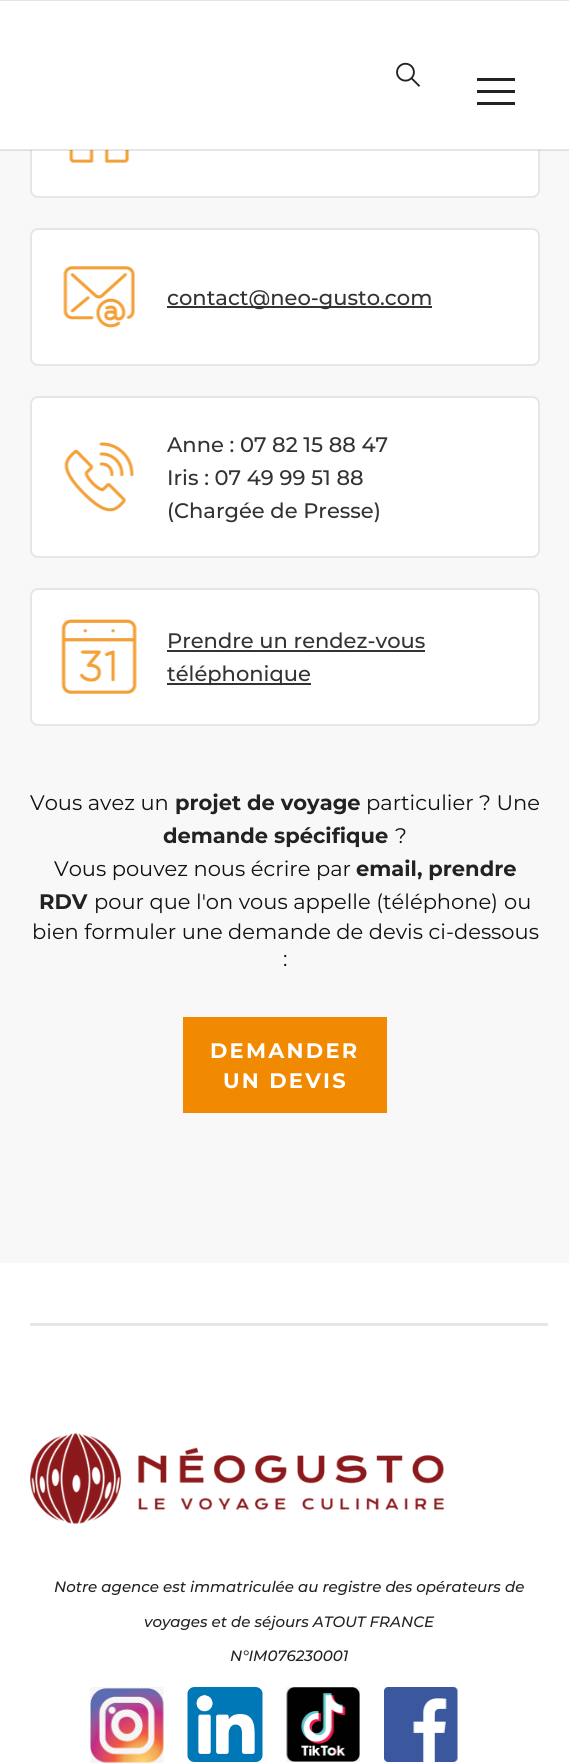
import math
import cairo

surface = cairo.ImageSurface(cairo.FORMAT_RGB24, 569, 1763)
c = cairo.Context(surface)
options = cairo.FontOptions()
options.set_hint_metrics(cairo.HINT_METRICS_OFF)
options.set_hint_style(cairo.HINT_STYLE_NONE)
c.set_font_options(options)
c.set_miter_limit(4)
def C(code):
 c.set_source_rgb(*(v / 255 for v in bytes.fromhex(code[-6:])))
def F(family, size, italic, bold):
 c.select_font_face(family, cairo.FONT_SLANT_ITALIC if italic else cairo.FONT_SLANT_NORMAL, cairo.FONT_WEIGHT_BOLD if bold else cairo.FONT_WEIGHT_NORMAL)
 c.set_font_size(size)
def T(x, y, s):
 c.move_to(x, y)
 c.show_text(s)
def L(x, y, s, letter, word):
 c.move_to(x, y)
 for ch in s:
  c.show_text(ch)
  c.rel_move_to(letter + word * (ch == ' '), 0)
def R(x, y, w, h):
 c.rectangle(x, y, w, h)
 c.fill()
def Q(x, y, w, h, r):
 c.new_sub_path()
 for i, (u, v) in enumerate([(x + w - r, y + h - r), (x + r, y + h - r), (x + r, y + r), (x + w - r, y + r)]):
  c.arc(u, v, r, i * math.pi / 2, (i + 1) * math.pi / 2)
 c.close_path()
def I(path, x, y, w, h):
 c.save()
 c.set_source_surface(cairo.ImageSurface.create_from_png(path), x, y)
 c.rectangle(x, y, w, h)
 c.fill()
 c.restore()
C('ffffff')
c.paint()
C('f8f8f8')
R(0,150,569,1113)
C('ffffff')
Q(30,60,510,138,8)
c.fill()
Q(31,61,508,136,7)
c.set_source_rgba(0,0,0,0.1)
c.stroke()
C('ffffff')
R(30,60,510,90)
I('2.png',69,150,61,13)
c.set_source_rgba(0,0,0,0.1)
R(0,149,569,2)
C('e6e6e6')
R(0,0,569,1)
I('1.png',396,62,25,25)
C('222222')
R(477,78,38,3)
R(477,90,38,3)
R(477,102,38,3)
C('ffffff')
Q(30,228,510,138,8)
c.fill()
Q(31,229,508,136,7)
c.set_source_rgba(0,0,0,0.1)
c.stroke()
I('3.png',63,266,72,62)
C('333333')
R(167,306,265,2)
F('Montserrat Medium',21,0,0)
T(167,305,'contact@neo-gusto.com')
C('ffffff')
Q(30,396,510,162,8)
c.fill()
Q(31,397,508,160,7)
c.set_source_rgba(0,0,0,0.1)
c.stroke()
I('4.png',64,442,70,70)
C('333333')
T(167,452,'Anne : 07 82 15 88 47')
T(167,485,'Iris : 07 49 99 51 88')
T(167,518,'(Chargée de Presse)')
C('ffffff')
Q(30,588,510,138,8)
c.fill()
Q(31,589,508,136,7)
c.set_source_rgba(0,0,0,0.1)
c.stroke()
I('5.png',61,619,76,75)
C('333333')
T(167,648,'Prendre un rendez-vous')
R(167,650,258,2)
R(167,683,144,2)
T(167,681,'téléphonique')
F('Montserrat',21,0,0)
C('111111')
T(30,810,'Vous avez un')
F('Montserrat',21,0,1)
C('222222')
T(175,810,'projet de voyage')
F('Montserrat',21,0,0)
C('111111')
T(366,810,'particulier ? Une')
F('Montserrat',21,0,1)
C('222222')
T(163,843,'demande spécifique')
F('Montserrat',21,0,0)
C('111111')
T(395,843,'?')
T(54,876,'Vous pouvez nous écrire par')
F('Montserrat',21,0,1)
C('222222')
T(356,876,'email, prendre')
T(39,909,'RDV')
F('Montserrat',21,0,0)
C('111111')
T(94,909,'pour que l\'on vous appelle (téléphone)')
T(504,909,'ou')
T(32,939,'bien formuler une demande de devis ci-dessous')
T(283,966,':')
C('f18a00')
R(183,1017,204,96)
F('Montserrat',21,0,1)
C('ffffff')
L(210,1058,'DEMANDER',2.25,0)
L(223,1088,'UN DEVIS',2.25,0)
C('e6e6e6')
R(30,1323,518,3)
I('6.png',30,1433,415,91)
F('Montserrat Medium',15,1,0)
C('222222')
T(54,1592,'Notre agence est immatriculée au registre des opérateurs de')
T(144,1627,'voyages et de séjours ATOUT FRANCE')
T(230,1661,'N°IM076230001')
I('7.png',90,1687,74,76)
I('8.png',187,1687,76,75)
I('9.png',286,1687,74,75)
I('10.png',384,1687,74,75)
surface.write_to_png('o.png')
